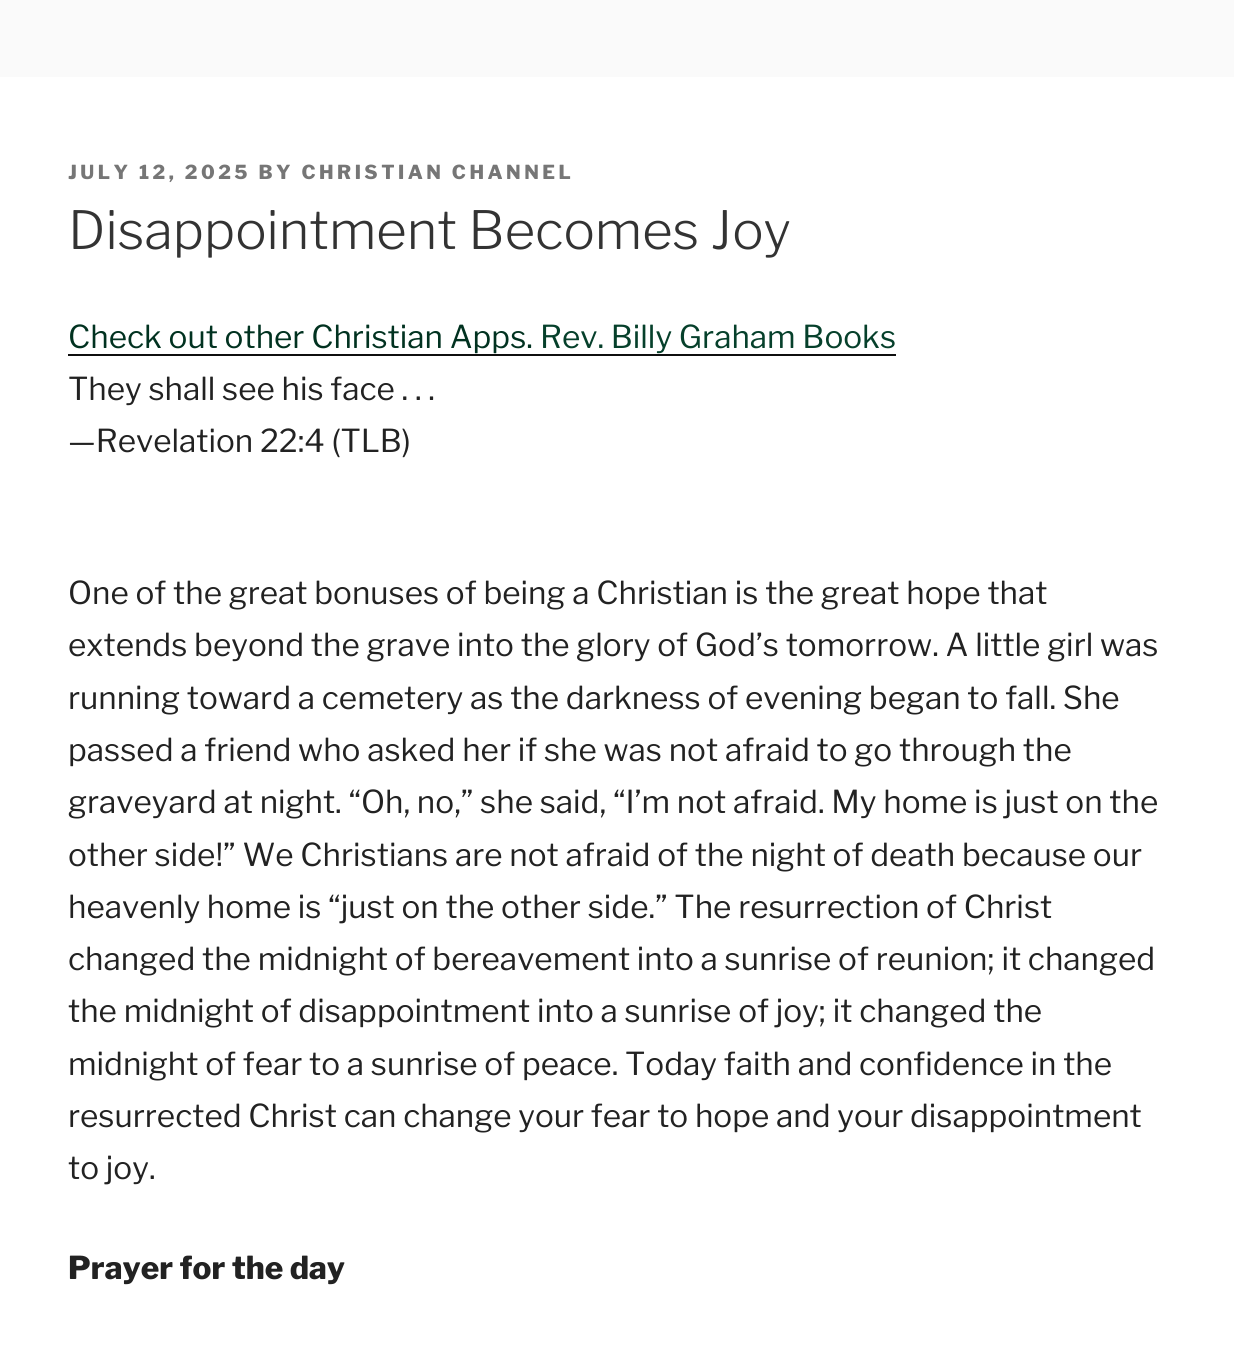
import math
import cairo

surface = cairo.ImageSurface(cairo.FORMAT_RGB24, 1234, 1357)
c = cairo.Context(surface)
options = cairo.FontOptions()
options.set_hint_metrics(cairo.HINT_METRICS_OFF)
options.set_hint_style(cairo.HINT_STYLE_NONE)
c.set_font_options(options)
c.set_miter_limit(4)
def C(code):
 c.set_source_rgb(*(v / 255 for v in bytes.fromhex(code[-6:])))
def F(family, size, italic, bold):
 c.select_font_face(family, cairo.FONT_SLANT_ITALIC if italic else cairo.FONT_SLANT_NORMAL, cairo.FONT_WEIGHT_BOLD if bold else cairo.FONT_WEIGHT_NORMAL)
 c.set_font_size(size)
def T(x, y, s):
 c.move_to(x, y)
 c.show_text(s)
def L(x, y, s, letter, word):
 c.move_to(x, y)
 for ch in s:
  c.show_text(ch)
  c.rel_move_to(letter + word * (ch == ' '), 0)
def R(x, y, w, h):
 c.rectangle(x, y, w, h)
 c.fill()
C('ffffff')
c.paint()
C('fafafa')
R(0,0,1234,77)
F('Libre Franklin Thin',19.25,0,0)
C('767676')
L(68,179,'JULY 12, 2025 BY CHRISTIAN CHANNEL',3.5,0)
F('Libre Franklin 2 Thin',52.5,0,0)
C('333333')
T(68,249,'Disappointment Becomes Joy')
F('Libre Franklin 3 Thin',31.5,0,0)
C('06402b')
T(540,348,'Rev. Billy Graham Books')
C('222222')
T(68,400,'They shall see his face . . .')
T(68,452,'—Revelation 22:4 (TLB)')
T(68,604,'One of the great bonuses of being a Christian is the great hope that')
T(68,656,'extends beyond the grave into the glory of God’s tomorrow. A little girl was')
T(68,709,'running toward a cemetery as the darkness of evening began to fall. She')
T(68,761,'passed a friend who asked her if she was not afraid to go through the')
T(68,813,'graveyard at night. “Oh, no,” she said, “I’m not afraid. My home is just on the')
T(68,866,'other side!” We Christians are not afraid of the night of death because our')
T(68,918,'heavenly home is “just on the other side.” The resurrection of Christ')
T(68,970,'changed the midnight of bereavement into a sunrise of reunion; it changed')
T(68,1022,'the midnight of disappointment into a sunrise of joy; it changed the')
T(68,1075,'midnight of fear to a sunrise of peace. Today faith and confidence in the')
T(68,1127,'resurrected Christ can change your fear to hope and your disappointment')
T(68,1179,'to joy.')
F('Libre Franklin Thin',31.5,0,0)
T(68,1279,'Prayer for the day')
F('Libre Franklin 3 Thin',31.5,0,0)
C('013220')
T(68,348,'Check out other Christian Apps.')
C('0f0f0f')
R(68,354,828,2)
surface.write_to_png('o.png')
